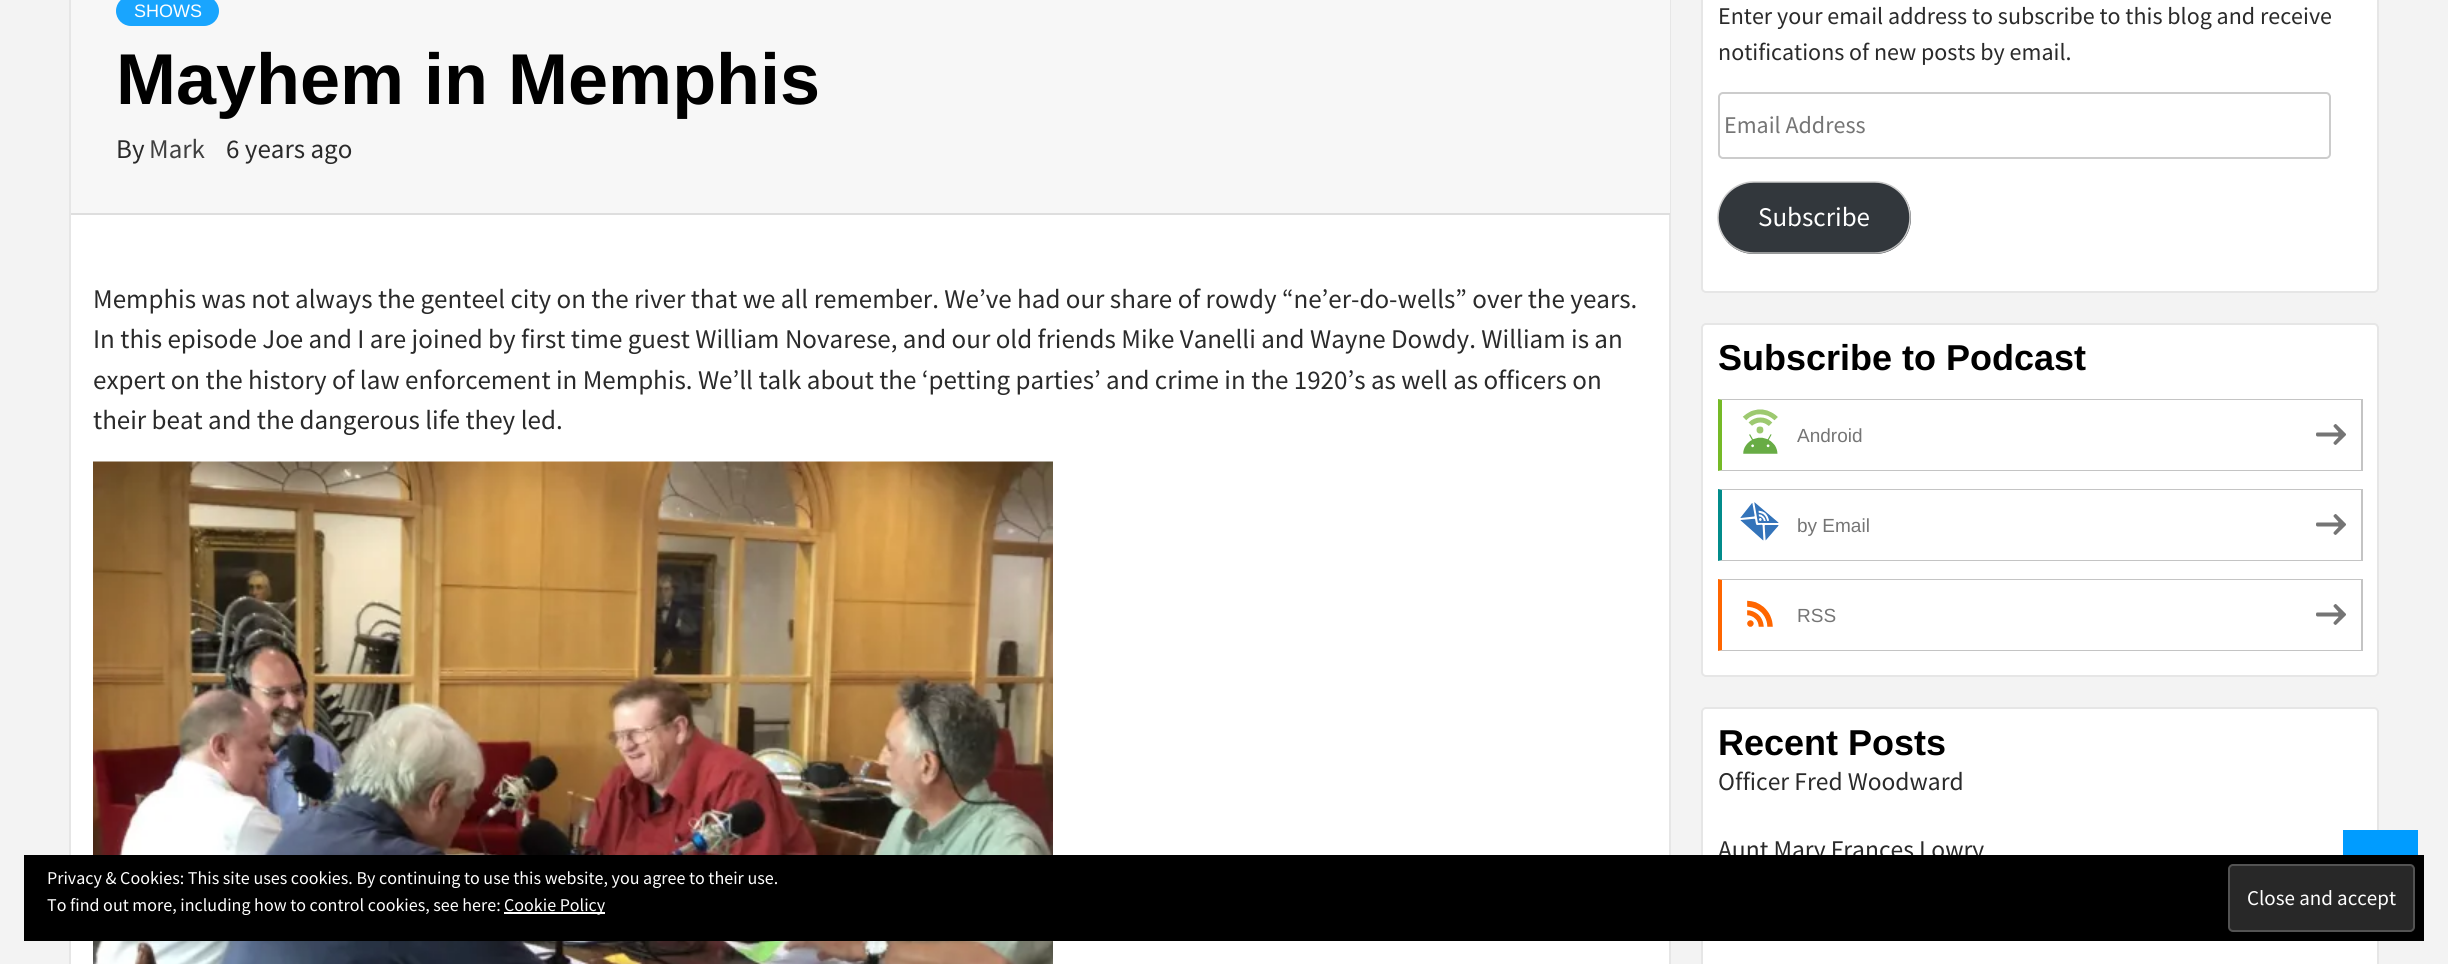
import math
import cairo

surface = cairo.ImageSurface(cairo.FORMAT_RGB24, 2448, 964)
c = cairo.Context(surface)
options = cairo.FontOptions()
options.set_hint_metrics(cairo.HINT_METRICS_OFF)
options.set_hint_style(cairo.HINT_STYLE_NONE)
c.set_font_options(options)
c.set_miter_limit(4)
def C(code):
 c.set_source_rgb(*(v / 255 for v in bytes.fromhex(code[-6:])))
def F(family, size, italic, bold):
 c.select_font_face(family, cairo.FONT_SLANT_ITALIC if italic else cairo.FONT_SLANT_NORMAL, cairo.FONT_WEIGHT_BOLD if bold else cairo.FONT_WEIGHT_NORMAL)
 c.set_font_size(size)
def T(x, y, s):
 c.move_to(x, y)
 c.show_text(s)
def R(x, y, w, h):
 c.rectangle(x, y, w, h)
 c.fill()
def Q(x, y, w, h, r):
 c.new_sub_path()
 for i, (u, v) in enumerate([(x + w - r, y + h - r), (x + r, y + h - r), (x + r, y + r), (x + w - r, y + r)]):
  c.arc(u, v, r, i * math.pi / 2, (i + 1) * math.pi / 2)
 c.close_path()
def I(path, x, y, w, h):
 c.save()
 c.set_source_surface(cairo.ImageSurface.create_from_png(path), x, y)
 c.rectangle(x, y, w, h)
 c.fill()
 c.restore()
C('f3f3f3')
c.paint()
C('ffffff')
R(71,215,1598,749)
c.rectangle(70,-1,1600,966)
C('e6e6e6')
c.stroke()
C('f7f7f7')
R(71,0,1599,213)
C('dedede')
R(71,213,1599,2)
C('19a5fe')
Q(116,-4,103,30,15)
c.fill()
F('Liberation Sans',18,0,0)
C('fefefe')
T(134,17,'SHOWS')
F('Liberation Sans',72,0,1)
C('000000')
T(116,104,'Mayhem in Memphis')
F('Source Sans Pro',27,0,0)
C('2a2a2a')
T(116,158,'By')
C('404040')
T(149,158,'Mark')
C('2a2a2a')
T(226,158,'6 years ago')
T(93,308,'Memphis was not always the genteel city on the river that we all remember. We’ve had our share of rowdy “ne’er-do-wells” over the years.')
T(93,348,'In this episode Joe and I are joined by first time guest William Novarese, and our old friends Mike Vanelli and Wayne Dowdy. William is an')
T(93,389,'expert on the history of law enforcement in Memphis. We’ll talk about the ‘petting parties’ and crime in the 1920’s as well as officers on')
T(93,429,'their beat and the dangerous life they led.')
I('1.png',93,461,960,503)
C('ffffff')
Q(1701,-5,678,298,5)
c.fill()
Q(1702,-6,676,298,4)
c.set_source_rgba(0,0.004,0.004,0.1)
c.stroke()
F('Source Sans Pro',24,0,0)
C('2a2a2a')
T(1718,24,'Enter your email address to subscribe to this blog and receive')
T(1718,60,'notifications of new posts by email.')
Q(1719,93,611,65,4)
C('cccccc')
c.stroke()
C('757575')
T(1724,133,'Email Address')
C('32373c')
Q(1718,182,193,72,36)
c.fill()
c.new_path()
c.move_to(1900,242.5)
c.curve_to(1893.5,249,1884.5,253,1875,253)
c.line_to(1753.5,253)
c.curve_to(1744,253,1735,249,1728.5,242.5)
C('bbbbbb')
c.set_line_width(1.5)
c.stroke()
c.new_path()
c.move_to(1728.5,242.5)
c.curve_to(1722,236,1718,227,1718,217.5)
c.curve_to(1718,208,1722,199,1728.5,192.5)
c.curve_to(1735,186,1744,182,1753.5,182)
c.line_to(1875,182)
c.curve_to(1884.5,182,1893.5,186,1900,192.5)
c.curve_to(1906.5,199,1910,208,1910,217.5)
c.curve_to(1910,227,1906.5,236,1900,242.5)
C('cccccc')
c.stroke()
F('Source Sans Pro',27,0,0)
C('fefefe')
T(1758,226,'Subscribe')
C('ffffff')
Q(1701,323,678,354,5)
c.fill()
Q(1702,324,676,352,4)
c.set_source_rgba(0,0.004,0.004,0.1)
c.set_line_width(2)
c.stroke()
F('Liberation Sans',36,0,1)
C('000000')
T(1718,370,'Subscribe to Podcast')
C('c4c4c4')
c.new_path()
c.move_to(1718,399)
c.line_to(2362,399)
c.line_to(2361,400)
c.line_to(1722,400)
c.close_path()
c.fill()
R(2361,399,2,72)
c.new_path()
c.move_to(2362,471)
c.line_to(1718,471)
c.line_to(1722,470)
c.line_to(2361,470)
c.close_path()
c.fill()
C('75ba26')
c.new_path()
c.move_to(1718,471)
c.line_to(1718,399)
c.line_to(1722,400)
c.line_to(1722,470)
c.close_path()
c.fill()
I('2.png',1742,409,36,45)
F('Liberation Sans',19,0,0)
C('757575')
T(1797,442,'Android')
I('3.png',2316,424,30,21)
C('c4c4c4')
c.new_path()
c.move_to(1718,489)
c.line_to(2362,489)
c.line_to(2361,490)
c.line_to(1722,490)
c.close_path()
c.fill()
R(2361,489,2,72)
c.new_path()
c.move_to(2362,561)
c.line_to(1718,561)
c.line_to(1722,560)
c.line_to(2361,560)
c.close_path()
c.fill()
C('018c8b')
c.new_path()
c.move_to(1718,561)
c.line_to(1718,489)
c.line_to(1722,490)
c.line_to(1722,560)
c.close_path()
c.fill()
I('4.png',1740,502,39,39)
C('757575')
T(1797,532,'by Email')
I('3.png',2316,514,30,21)
C('c4c4c4')
c.new_path()
c.move_to(1718,579)
c.line_to(2362,579)
c.line_to(2361,580)
c.line_to(1722,580)
c.close_path()
c.fill()
R(2361,579,2,72)
c.new_path()
c.move_to(2362,651)
c.line_to(1718,651)
c.line_to(1722,650)
c.line_to(2361,650)
c.close_path()
c.fill()
C('ff6600')
c.new_path()
c.move_to(1718,651)
c.line_to(1718,579)
c.line_to(1722,580)
c.line_to(1722,650)
c.close_path()
c.fill()
I('5.png',1747,600,26,27)
C('757575')
T(1797,622,'RSS')
I('3.png',2316,604,30,21)
C('ffffff')
Q(1701,707,678,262,5)
c.fill()
Q(1702,708,676,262,4)
c.set_source_rgba(0,0.004,0.004,0.1)
c.stroke()
F('Liberation Sans',36,0,1)
C('000000')
T(1718,755,'Recent Posts')
F('Source Sans Pro',25.5,0,0)
C('2a2a2a')
T(1718,790,'Officer Fred Woodward')
T(1718,858,'Aunt Mary Frances Lowry')
C('009cff')
R(2343,830,75,25)
C('000000')
R(24,855,2400,86)
F('Source Sans Pro',18,0,0)
C('fefefe')
T(47,884,'Privacy & Cookies: This site uses cookies. By continuing to use this website, you agree to their use.')
T(47,911,'To find out more, including how to control cookies, see here:')
C('ffffff')
R(504,912,101,2)
C('fefefe')
T(504,911,'Cookie Policy')
C('282828')
Q(2229,865,185,66,4)
c.fill_preserve()
C('535353')
c.stroke()
F('Source Sans Pro',21,0,0)
C('fefefe')
T(2247,905,'Close and accept')
surface.write_to_png('o.png')
